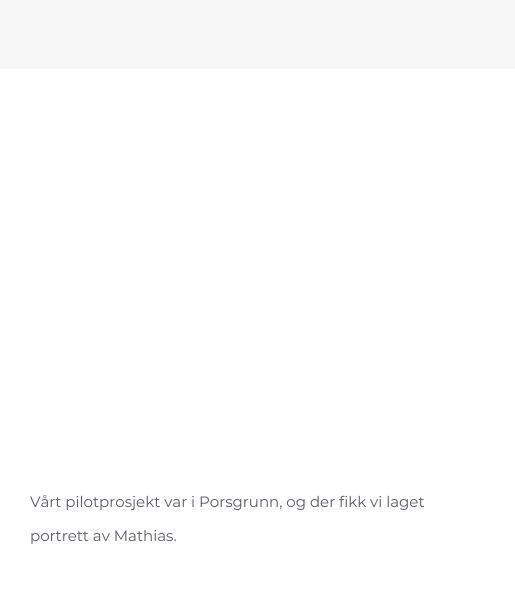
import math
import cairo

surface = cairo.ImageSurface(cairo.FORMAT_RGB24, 515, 610)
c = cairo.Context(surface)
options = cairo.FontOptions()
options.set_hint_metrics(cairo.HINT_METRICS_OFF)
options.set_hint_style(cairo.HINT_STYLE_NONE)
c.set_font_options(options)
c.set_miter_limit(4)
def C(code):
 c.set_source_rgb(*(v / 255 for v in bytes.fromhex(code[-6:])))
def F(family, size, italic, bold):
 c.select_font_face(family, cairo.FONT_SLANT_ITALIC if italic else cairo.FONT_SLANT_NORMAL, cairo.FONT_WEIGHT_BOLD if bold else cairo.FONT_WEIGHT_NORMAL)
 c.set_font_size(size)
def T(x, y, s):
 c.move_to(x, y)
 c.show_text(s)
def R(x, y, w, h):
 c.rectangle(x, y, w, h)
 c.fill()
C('ffffff')
c.paint()
C('f6f6f6')
R(0,0,515,69)
F('Montserrat',15,0,0)
C('5a5d62')
T(30,507,'Vårt pilotprosjekt var i Porsgrunn, og der fikk vi laget')
T(30,541,'portrett av Mathias.')
surface.write_to_png('o.png')
